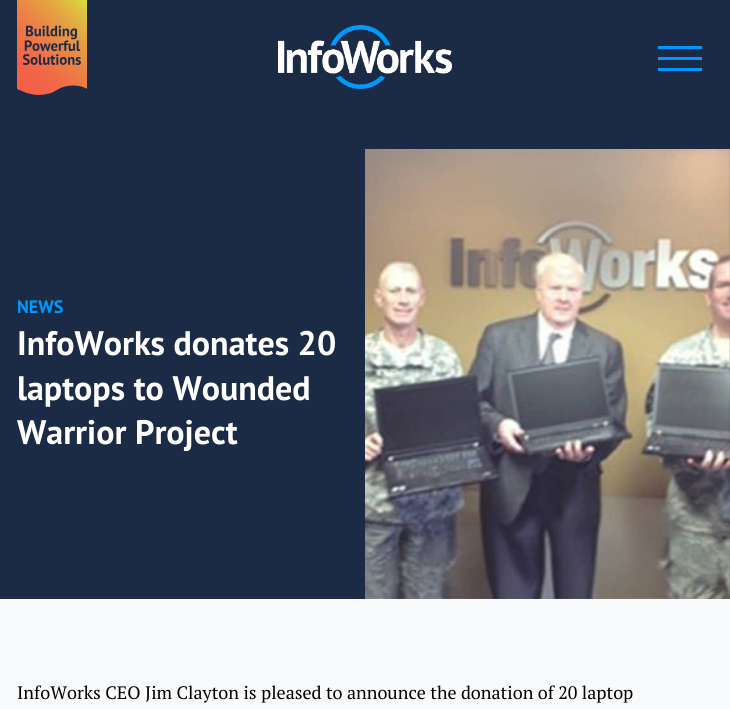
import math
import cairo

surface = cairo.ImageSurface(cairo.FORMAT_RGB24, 730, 709)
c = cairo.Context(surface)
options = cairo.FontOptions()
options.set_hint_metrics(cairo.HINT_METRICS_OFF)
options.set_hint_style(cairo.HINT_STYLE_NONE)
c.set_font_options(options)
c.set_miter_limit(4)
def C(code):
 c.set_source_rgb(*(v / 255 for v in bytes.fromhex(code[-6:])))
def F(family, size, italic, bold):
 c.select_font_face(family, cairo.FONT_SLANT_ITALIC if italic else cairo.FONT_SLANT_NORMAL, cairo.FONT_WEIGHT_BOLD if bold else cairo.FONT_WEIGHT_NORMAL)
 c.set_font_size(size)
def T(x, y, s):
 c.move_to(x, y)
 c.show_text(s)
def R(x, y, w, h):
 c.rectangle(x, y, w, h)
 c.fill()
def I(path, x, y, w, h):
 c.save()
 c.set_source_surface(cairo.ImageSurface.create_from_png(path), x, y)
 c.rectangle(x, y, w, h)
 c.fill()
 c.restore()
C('f9fafb')
c.paint()
C('1c2b45')
R(0,0,730,599)
I('1.png',17,0,70,95)
I('2.png',278,25,174,64)
C('0099ff')
R(658,46,44,3)
R(658,57,44,3)
R(658,68,44,3)
F('PT Sans',18,0,1)
T(17,313,'NEWS')
F('PT Sans',34,0,1)
C('ffffff')
T(17,355,'InfoWorks donates 20')
T(17,400,'laptops to Wounded')
T(17,444,'Warrior Project')
I('3.png',365,149,365,450)
F('PT Serif',18,0,0)
C('000000')
T(17,699,'InfoWorks CEO Jim Clayton is pleased to announce the donation of 20 laptop')
surface.write_to_png('o.png')
